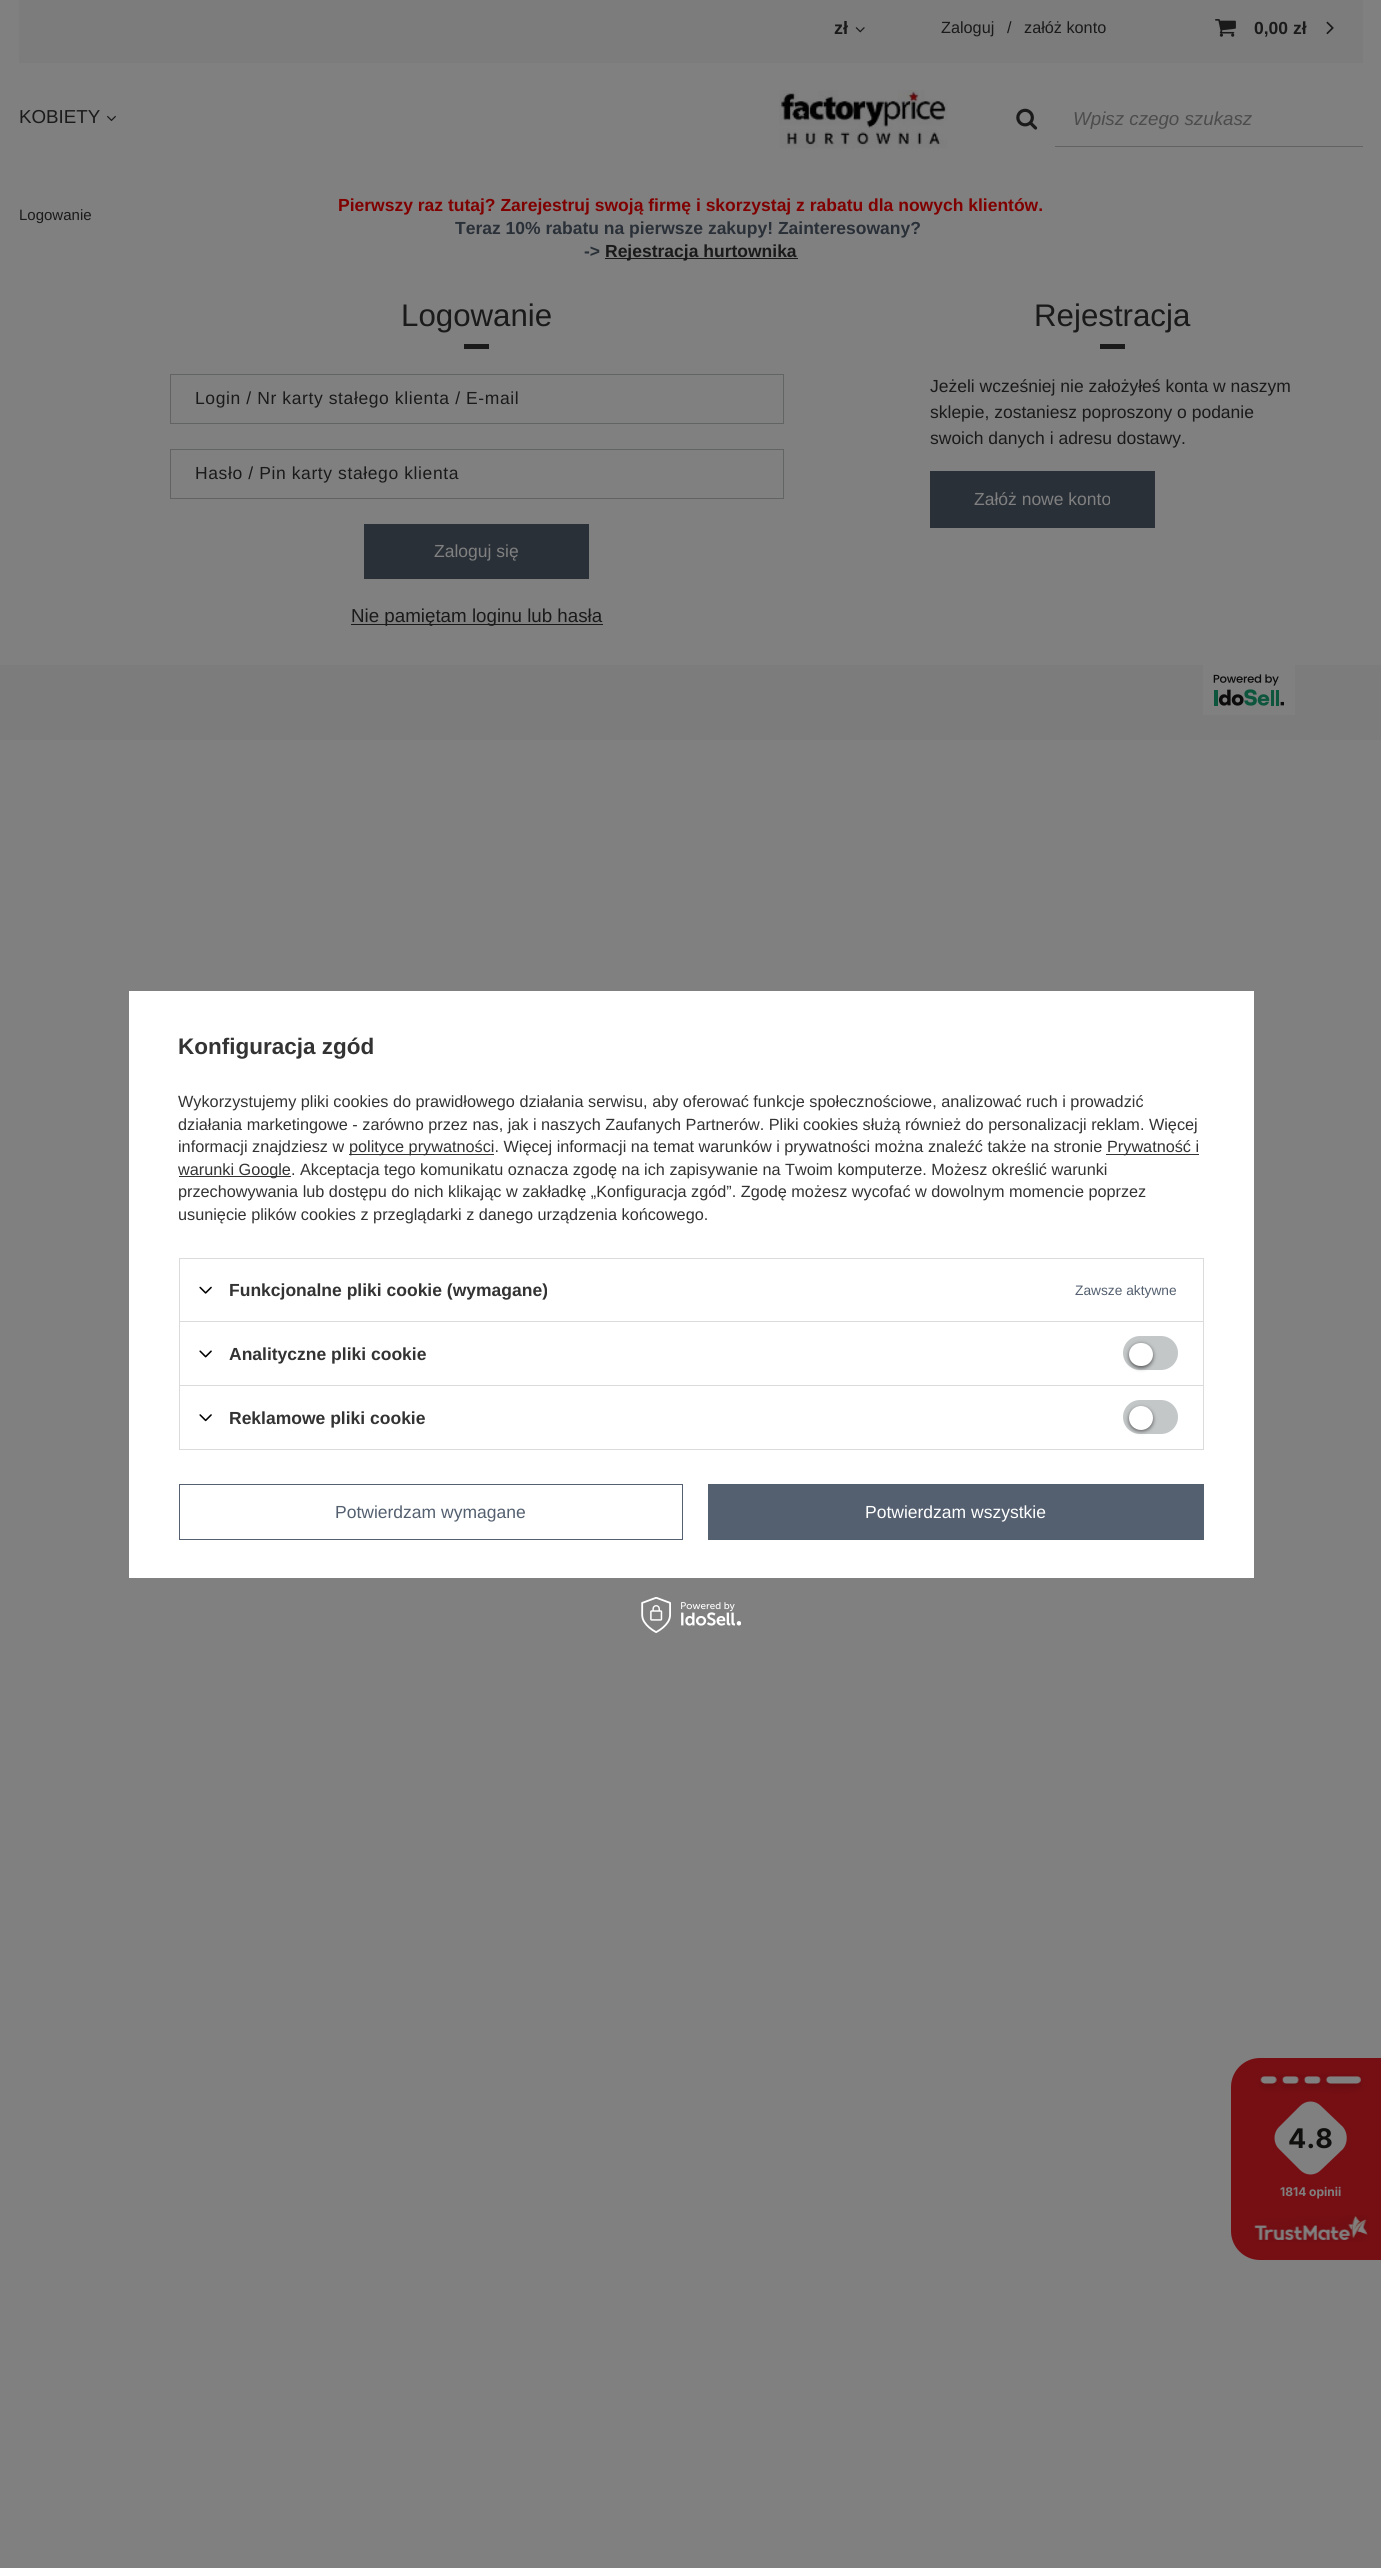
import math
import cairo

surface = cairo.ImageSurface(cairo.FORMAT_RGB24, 1381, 2568)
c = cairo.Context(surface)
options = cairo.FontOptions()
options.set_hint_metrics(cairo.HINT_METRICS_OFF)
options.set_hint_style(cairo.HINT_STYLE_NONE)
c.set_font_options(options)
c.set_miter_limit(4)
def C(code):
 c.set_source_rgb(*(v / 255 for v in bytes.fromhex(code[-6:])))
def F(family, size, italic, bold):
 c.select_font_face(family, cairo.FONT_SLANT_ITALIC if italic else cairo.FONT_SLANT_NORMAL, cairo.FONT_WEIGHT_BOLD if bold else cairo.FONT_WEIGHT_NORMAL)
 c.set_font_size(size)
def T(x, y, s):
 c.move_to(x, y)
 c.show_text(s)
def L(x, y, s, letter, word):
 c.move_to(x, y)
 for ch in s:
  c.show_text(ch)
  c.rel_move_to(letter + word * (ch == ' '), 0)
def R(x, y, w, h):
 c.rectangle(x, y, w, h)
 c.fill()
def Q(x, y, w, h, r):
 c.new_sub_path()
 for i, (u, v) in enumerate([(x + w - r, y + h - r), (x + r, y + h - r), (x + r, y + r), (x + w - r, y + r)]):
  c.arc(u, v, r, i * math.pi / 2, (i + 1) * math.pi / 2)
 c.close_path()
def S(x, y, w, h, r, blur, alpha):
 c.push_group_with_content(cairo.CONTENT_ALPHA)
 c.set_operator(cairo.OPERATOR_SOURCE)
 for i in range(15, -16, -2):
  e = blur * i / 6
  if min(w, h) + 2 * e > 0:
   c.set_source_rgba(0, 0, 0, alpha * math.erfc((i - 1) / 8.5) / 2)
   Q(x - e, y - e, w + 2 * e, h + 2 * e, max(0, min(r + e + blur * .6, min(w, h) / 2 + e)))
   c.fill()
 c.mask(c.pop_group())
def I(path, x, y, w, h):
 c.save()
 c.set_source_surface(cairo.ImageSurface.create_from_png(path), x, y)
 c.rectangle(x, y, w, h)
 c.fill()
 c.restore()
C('808080')
c.paint()
C('7c7c7c')
R(19,0,1344,63)
F('Liberation Sans',18,0,1)
C('1a1a1a')
T(834,34,'zł')
I('1.png',855,27,10,6)
F('Liberation Sans',16.25,0,0)
T(941,33,'Zaloguj')
T(1007,33,'/')
T(1024,33,'załóż konto')
I('2.png',1215,19,21,18)
F('Liberation Sans',17.5,0,1)
T(1254,34,'0,00 zł')
I('3.png',1326,21,8,14)
F('Liberation Sans',18.75,0,0)
T(19,123,'KOBIETY')
I('4.png',107,115,9,7)
I('5.png',779,90,169,59)
I('6.png',1016,108,22,22)
C('626464')
R(1055,146,308,1)
F('Liberation Sans',18.75,1,0)
C('4c4c4c')
T(1073,125,'Wpisz czego szukasz')
F('Liberation Sans',15,0,0)
C('1a1a1a')
T(19,220,'Logowanie')
F('Liberation Sans',17.5,0,1)
C('800000')
T(338,211,'Pierwszy raz tutaj? Zarejestruj swoją firmę i skorzystaj z rabatu dla nowych klientów.')
C('2a3038')
T(455,234,'Teraz 10% rabatu na pierwsze zakupy! Zainteresowany?')
T(584,257,'->')
C('1a1a1a')
R(605,258,193,1)
T(605,257,'Rejestracja hurtownika')
F('Liberation Sans',31.25,0,0)
T(401,326,'Logowanie')
R(464,344,25,5)
c.rectangle(170.5,374.5,613,49)
C('626464')
c.set_line_width(1)
c.stroke()
F('Liberation Sans',17.5,0,0)
C('1a1a1a')
L(195,404,'Login / Nr karty stałego klienta / E-mail',.6,0)
c.rectangle(170.5,449.5,613,49)
C('626464')
c.stroke()
C('1a1a1a')
L(195,479,'Hasło / Pin karty stałego klienta',.6,0)
C('2a3038')
R(364,524,225,55)
C('808080')
T(434,557,'Zaloguj się')
C('1a1a1a')
R(351,624,252,1)
F('Liberation Sans',18.75,0,0)
T(351,622,'Nie pamiętam loginu lub hasła')
F('Liberation Sans',31.25,0,0)
T(1034,326,'Rejestracja')
R(1100,344,25,5)
F('Liberation Sans',17.5,0,0)
T(930,392,'Jeżeli wcześniej nie założyłeś konta w naszym')
T(930,418,'sklepie, zostaniesz poproszony o podanie')
T(930,444,'swoich danych i adresu dostawy.')
C('2a3038')
R(930,471,225,57)
C('808080')
T(974,505,'Załóż nowe konto')
C('7c7c7c')
R(0,665,1381,75)
I('7.png',1203,665,92,50)
C('ffffff')
R(129,991,1125,587)
F('Liberation Sans',22.5,0,1)
C('333333')
T(178,1054,'Konfiguracja zgód')
F('Liberation Sans',16.25,0,0)
T(178,1107,'Wykorzystujemy pliki cookies do prawidłowego działania serwisu, aby oferować funkcje społecznościowe, analizować ruch i prowadzić')
T(178,1130,'działania marketingowe - zarówno przez nas, jak i naszych Zaufanych Partnerów. Pliki cookies służą również do personalizacji reklam. Więcej')
T(178,1152,'informacji znajdziesz w')
R(349,1154,145,1)
T(349,1152,'polityce prywatności. Więcej informacji na temat warunków i prywatności można znaleźć także na stronie')
R(1106,1154,93,1)
T(1107,1152,'Prywatność i')
R(179,1176,112,1)
T(178,1175,'warunki Google. Akceptacja tego komunikatu oznacza zgodę na ich zapisywanie na Twoim komputerze. Możesz określić warunki')
T(178,1197,'przechowywania lub dostępu do nich klikając w zakładkę „Konfiguracja zgód”. Zgodę możesz wycofać w dowolnym momencie poprzez')
T(178,1220,'usunięcie plików cookies z przeglądarki z danego urządzenia końcowego.')
C('dbdbdb')
R(179,1258,1025,1)
R(1203,1258,1,63)
R(179,1258,1,63)
I('8.png',199,1286,13,8)
F('Liberation Sans',17.5,0,1)
C('333333')
T(229,1296,'Funkcjonalne pliki cookie (wymagane)')
F('Liberation Sans',13.75,0,0)
C('546070')
T(1075,1295,'Zawsze aktywne')
C('dbdbdb')
R(179,1321,1025,1)
R(1203,1321,1,64)
R(179,1321,1,64)
I('9.png',199,1350,13,8)
F('Liberation Sans',17.5,0,1)
C('333333')
T(229,1360,'Analityczne pliki cookie')
C('c4c7c8')
Q(1123,1336,55,34,17)
c.fill()
C('000000')
S(1129,1344,24,24,12,2,.56)
C('ffffff')
Q(1129,1343,24,23,11.5)
c.fill()
c.rectangle(179.5,1385.5,1024,64)
C('dbdbdb')
c.stroke()
I('10.png',199,1414,13,8)
C('333333')
T(229,1424,'Reklamowe pliki cookie')
C('c4c7c8')
Q(1123,1400,55,34,17)
c.fill()
C('000000')
S(1129,1408,24,23,11.5,2,.56)
C('ffffff')
c.arc(1141,1418,12,0,2 * math.pi)
c.fill()
c.rectangle(179.5,1484.5,503,55)
C('546070')
c.stroke()
F('Liberation Sans',17.5,0,0)
T(335,1518,'Potwierdzam wymagane')
R(708,1484,496,56)
C('ffffff')
T(865,1518,'Potwierdzam wszystkie')
I('11.png',641,1597,100,36)
C('760f14')
c.new_path()
c.move_to(1260,2058)
c.line_to(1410,2058)
c.line_to(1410,2260)
c.line_to(1260,2260)
c.curve_to(1244,2260,1231,2247,1231,2231)
c.line_to(1231,2087)
c.curve_to(1231,2071,1244,2058,1260,2058)
c.close_path()
c.fill()
I('12.png',1258,2074,105,20)
C('808080')
c.new_path()
c.move_to(1321,2106)
c.line_to(1343,2127)
c.curve_to(1348,2133,1348,2143,1343,2149)
c.line_to(1321,2170)
c.curve_to(1315,2176,1306,2176,1300,2170)
c.line_to(1279,2149)
c.curve_to(1273,2143,1273,2133,1279,2127)
c.line_to(1300,2106)
c.curve_to(1306,2100,1315,2100,1321,2106)
c.close_path()
c.fill()
F('Inter',27,0,1)
C('0f0f0e')
T(1288,2148,'4.8')
F('Inter',12,0,1)
C('808080')
T(1280,2196,'1814 opinii')
I('13.png',1254,2215,115,27)
surface.write_to_png('o.png')
